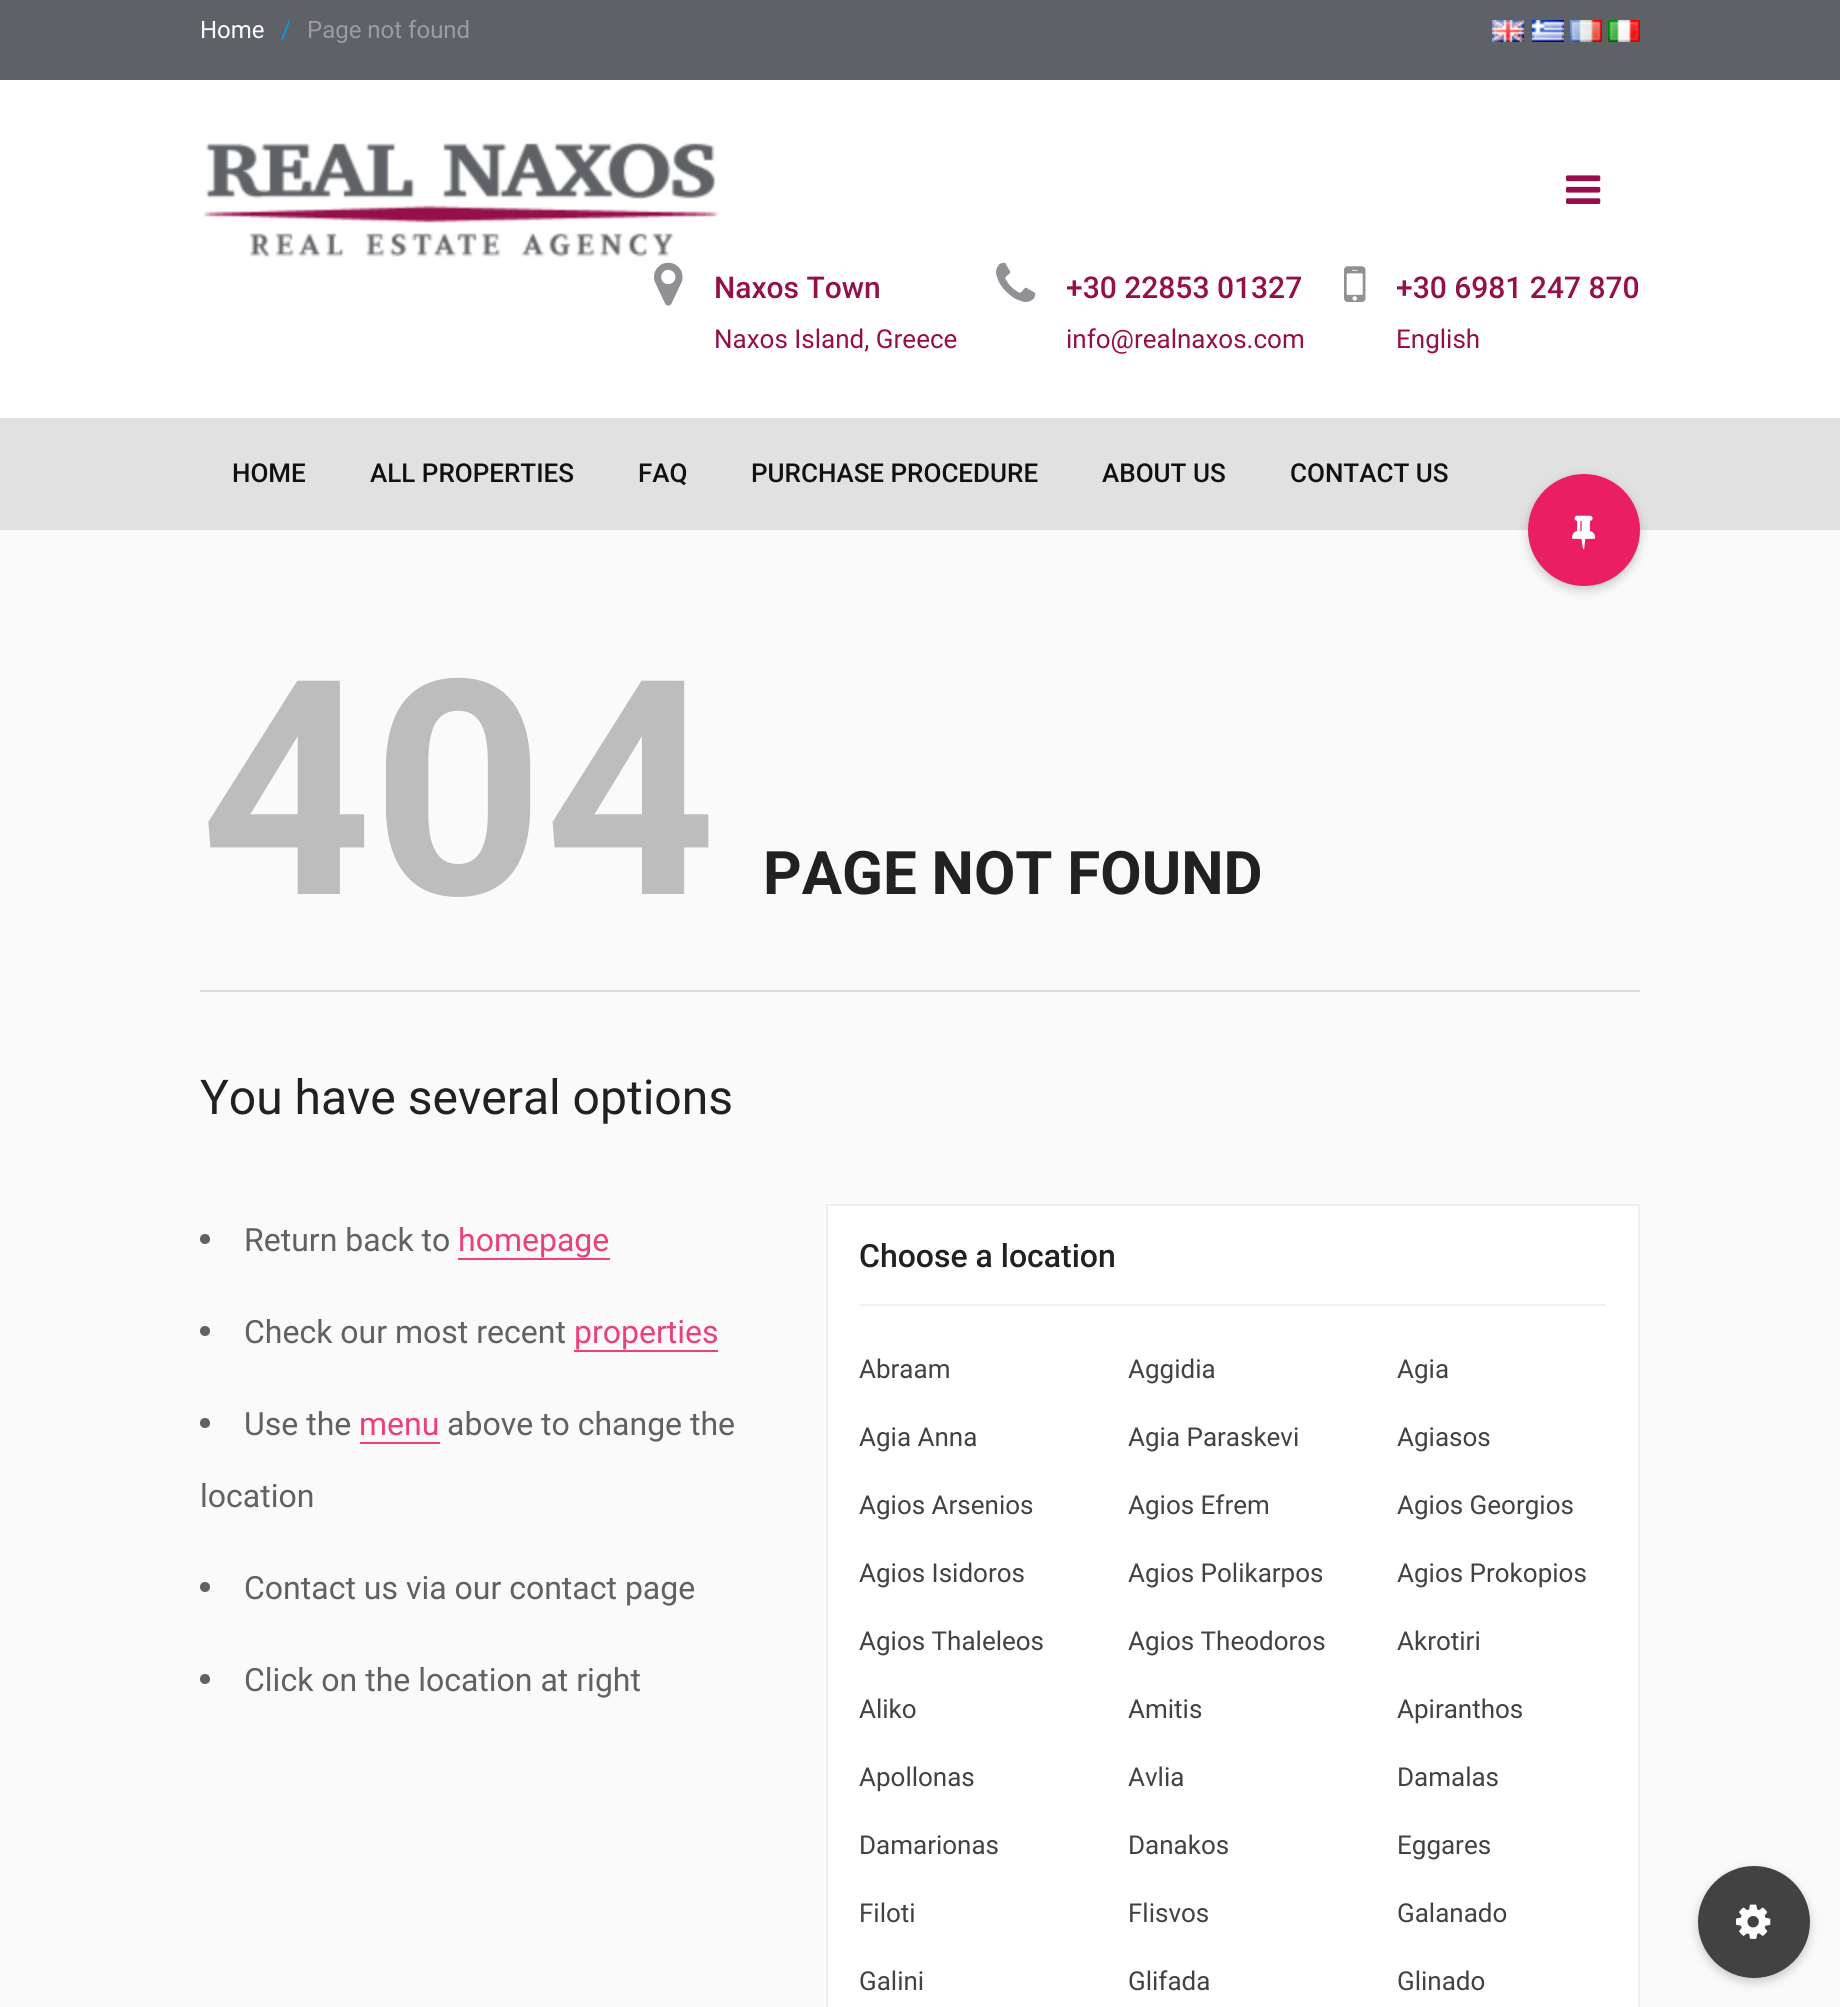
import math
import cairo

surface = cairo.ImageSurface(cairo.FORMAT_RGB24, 1840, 2007)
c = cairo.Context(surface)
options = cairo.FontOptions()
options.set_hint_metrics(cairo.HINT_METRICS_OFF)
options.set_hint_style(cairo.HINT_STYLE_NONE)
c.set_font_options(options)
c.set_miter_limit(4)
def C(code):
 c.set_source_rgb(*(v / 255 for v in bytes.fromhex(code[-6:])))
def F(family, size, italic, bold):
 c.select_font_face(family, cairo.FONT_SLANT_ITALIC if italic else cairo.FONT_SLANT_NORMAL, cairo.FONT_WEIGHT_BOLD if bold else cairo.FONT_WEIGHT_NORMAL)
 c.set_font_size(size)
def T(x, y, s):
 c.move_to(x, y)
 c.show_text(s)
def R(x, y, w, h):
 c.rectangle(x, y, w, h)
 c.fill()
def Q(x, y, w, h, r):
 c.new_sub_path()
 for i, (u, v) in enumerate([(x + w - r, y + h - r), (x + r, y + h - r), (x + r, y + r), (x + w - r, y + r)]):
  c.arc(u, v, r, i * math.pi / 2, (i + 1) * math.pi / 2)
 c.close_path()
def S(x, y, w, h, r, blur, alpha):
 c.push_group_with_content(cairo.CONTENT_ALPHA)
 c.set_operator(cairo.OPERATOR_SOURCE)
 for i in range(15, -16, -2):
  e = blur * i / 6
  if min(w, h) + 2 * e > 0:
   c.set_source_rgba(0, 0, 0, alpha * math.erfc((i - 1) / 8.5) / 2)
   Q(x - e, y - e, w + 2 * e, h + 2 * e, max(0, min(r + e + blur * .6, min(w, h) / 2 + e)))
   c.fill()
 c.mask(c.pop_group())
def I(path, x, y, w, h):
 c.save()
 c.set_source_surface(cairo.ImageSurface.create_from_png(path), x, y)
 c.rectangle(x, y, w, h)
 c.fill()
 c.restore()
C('fafafa')
c.paint()
C('ffffff')
R(0,80,1840,338)
C('5e6165')
R(0,0,1840,80)
F('Roboto',24,0,0)
C('ffffff')
T(200,38,'Home')
C('039be5')
T(281,38,'/')
C('999da3')
T(307,38,'Page not found')
I('1.png',1492,20,32,22)
I('2.png',1532,20,32,22)
I('3.png',1570,20,32,22)
I('4.png',1608,20,32,22)
I('5.png',203,142,516,115)
I('6.png',1566,175,35,29)
I('7.png',654,262,29,44)
F('Roboto Medium',30,0,0)
C('95104b')
T(714,298,'Naxos Town')
F('Roboto',26,0,0)
T(714,348,'Naxos Island, Greece')
I('8.png',996,262,40,40)
F('Roboto Medium',30,0,0)
T(1066,298,'+30 22853 01327')
F('Roboto',26,0,0)
T(1066,348,'info@realnaxos.com')
I('9.png',1344,266,22,36)
F('Roboto Medium',30,0,0)
T(1396,298,'+30 6981 247 870')
F('Roboto',26,0,0)
T(1396,348,'English')
C('e1e1e1')
R(0,418,1840,112)
F('Roboto Medium',26,0,0)
C('111111')
T(232,482,'HOME')
T(370,482,'ALL PROPERTIES')
T(638,482,'FAQ')
T(751,482,'PURCHASE PROCEDURE')
T(1102,482,'ABOUT US')
T(1290,482,'CONTACT US')
C('000000')
S(1528,478,112,112,56,5,.2)
C('e91e63')
c.arc(1584,530,56,0,2 * math.pi)
c.fill()
I('10.png',1572,515,24,35)
C('dcdcdc')
R(200,990,1440,2)
F('Roboto',300,0,1)
C('bdbdbd')
T(200,894,'404')
F('Roboto',60,0,1)
C('212121')
T(763,894,'PAGE NOT FOUND')
F('Roboto',48,0,0)
T(200,1114,'You have several options')
C('616161')
c.new_path()
c.arc(205,1239,5,0,2 * math.pi)
c.fill()
F('Roboto',32,0,0)
T(244,1251,'Return back to')
C('ec407a')
T(458,1251,'homepage')
R(458,1258,152,2)
C('616161')
c.new_path()
c.arc(205,1331,5,0,2 * math.pi)
c.fill()
T(244,1343,'Check our most recent')
C('ec407a')
T(574,1343,'properties')
R(574,1350,144,2)
C('616161')
c.new_path()
c.arc(205,1423,5,0,2 * math.pi)
c.fill()
T(244,1435,'Use the')
C('ec407a')
T(359,1435,'menu')
R(360,1442,80,2)
C('616161')
T(447,1435,'above to change the')
T(200,1507,'location')
c.new_path()
c.arc(205,1587,5,0,2 * math.pi)
c.fill()
T(244,1599,'Contact us via our contact page')
c.new_path()
c.arc(205,1679,5,0,2 * math.pi)
c.fill()
T(244,1691,'Click on the location at right')
C('ffffff')
c.rectangle(827,1205,812,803)
c.fill_preserve()
C('eeeeee')
c.stroke()
C('f2f2f2')
R(860,1304,746,2)
F('Roboto Medium',32,0,0)
C('212121')
T(859,1267,'Choose a location')
F('Roboto',26,0,0)
C('424242')
T(859,1378,'Abraam')
T(1128,1378,'Aggidia')
T(1397,1378,'Agia')
T(859,1446,'Agia Anna')
T(1128,1446,'Agia Paraskevi')
T(1397,1446,'Agiasos')
T(859,1514,'Agios Arsenios')
T(1128,1514,'Agios Efrem')
T(1397,1514,'Agios Georgios')
T(859,1582,'Agios Isidoros')
T(1128,1582,'Agios Polikarpos')
T(1397,1582,'Agios Prokopios')
T(859,1650,'Agios Thaleleos')
T(1128,1650,'Agios Theodoros')
T(1397,1650,'Akrotiri')
T(859,1718,'Aliko')
T(1128,1718,'Amitis')
T(1397,1718,'Apiranthos')
T(859,1786,'Apollonas')
T(1128,1786,'Avlia')
T(1397,1786,'Damalas')
T(859,1854,'Damarionas')
T(1128,1854,'Danakos')
T(1397,1854,'Eggares')
T(859,1922,'Filoti')
T(1128,1922,'Flisvos')
T(1397,1922,'Galanado')
T(859,1990,'Galini')
T(1128,1990,'Glifada')
T(1397,1990,'Glinado')
C('000000')
S(1698,1870,112,112,56,5,.2)
C('424242')
c.arc(1754,1922,56,0,2 * math.pi)
c.fill()
I('11.png',1736,1904,35,35)
surface.write_to_png('o.png')
